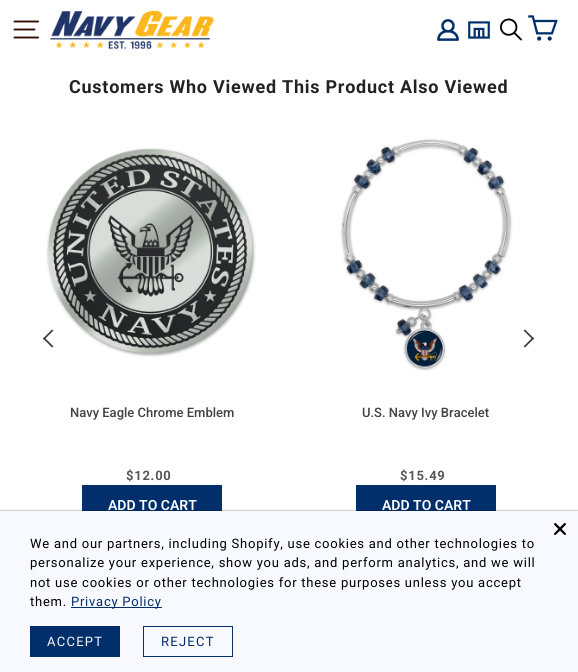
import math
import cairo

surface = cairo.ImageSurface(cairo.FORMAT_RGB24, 578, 672)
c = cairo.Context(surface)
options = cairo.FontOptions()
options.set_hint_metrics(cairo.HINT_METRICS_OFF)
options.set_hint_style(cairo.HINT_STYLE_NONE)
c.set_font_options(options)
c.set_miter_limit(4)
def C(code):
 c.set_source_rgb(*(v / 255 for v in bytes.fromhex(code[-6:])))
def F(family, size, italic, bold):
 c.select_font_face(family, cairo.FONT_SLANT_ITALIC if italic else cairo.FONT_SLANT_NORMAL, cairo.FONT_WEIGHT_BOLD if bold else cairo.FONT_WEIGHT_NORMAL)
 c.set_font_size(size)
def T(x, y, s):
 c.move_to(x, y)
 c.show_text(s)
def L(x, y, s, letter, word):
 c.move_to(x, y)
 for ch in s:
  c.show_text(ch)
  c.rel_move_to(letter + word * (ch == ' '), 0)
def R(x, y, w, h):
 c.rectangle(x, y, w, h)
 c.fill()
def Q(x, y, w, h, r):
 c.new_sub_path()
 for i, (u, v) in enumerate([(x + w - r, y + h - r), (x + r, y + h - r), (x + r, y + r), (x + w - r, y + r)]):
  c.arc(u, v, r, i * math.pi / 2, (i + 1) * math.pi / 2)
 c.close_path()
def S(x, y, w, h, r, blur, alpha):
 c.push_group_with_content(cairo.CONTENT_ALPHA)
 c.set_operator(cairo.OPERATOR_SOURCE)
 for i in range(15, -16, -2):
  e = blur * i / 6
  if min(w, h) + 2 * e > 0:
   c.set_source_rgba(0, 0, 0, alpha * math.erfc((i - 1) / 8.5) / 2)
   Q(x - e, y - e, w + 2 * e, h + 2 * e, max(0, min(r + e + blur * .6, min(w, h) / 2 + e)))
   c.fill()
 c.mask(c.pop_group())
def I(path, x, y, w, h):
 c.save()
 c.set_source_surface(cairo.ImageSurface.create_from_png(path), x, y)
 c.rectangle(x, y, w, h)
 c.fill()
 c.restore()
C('ffffff')
c.paint()
I('1.png',50,10,164,40)
c.new_path()
c.move_to(14.5,21.5)
c.line_to(38,21.5)
c.move_to(14.5,29.5)
c.line_to(34.5,29.5)
c.move_to(14.5,37.5)
c.line_to(38,37.5)
C('321004')
c.set_line_width(1.9)
c.set_line_cap(cairo.LINE_CAP_ROUND)
c.set_line_join(cairo.LINE_JOIN_ROUND)
c.stroke()
I('2.png',437,19,22,22)
I('3.png',468,21,22,18)
I('4.png',500,18,22,23)
I('5.png',528,15,30,26)
F('Roboto',18,0,1)
C('232323')
L(69,93,'Customers Who Viewed This Product Also Viewed',.75,0)
I('6.png',46,147,210,210)
C('404040')
c.new_path()
c.move_to(52,347.5)
c.line_to(43,338.5)
c.line_to(44,337)
c.line_to(53.5,346.5)
c.close_path()
c.fill()
c.new_path()
c.move_to(44,340)
c.line_to(43,338.5)
c.line_to(52,329.5)
c.line_to(53.5,330.5)
c.close_path()
c.fill()
c.new_path()
c.move_to(525,329.5)
c.line_to(534,338.5)
c.line_to(533,340)
c.line_to(523.5,330.5)
c.close_path()
c.fill()
c.new_path()
c.move_to(533,337)
c.line_to(534,338.5)
c.line_to(525,347.5)
c.line_to(523.5,346.5)
c.close_path()
c.fill()
F('Roboto Medium',13,0,0)
C('434343')
T(70,417,'Navy Eagle Chrome Emblem')
F('Roboto',13,0,1)
C('575757')
L(126,480,'$12.00',.75,0)
C('002f6c')
R(82,485,140,26)
F('Roboto SemiBold',14,0,0)
C('ffffff')
T(108,510,'ADD TO CART')
I('7.png',340,139,173,232)
F('Roboto Medium',13,0,0)
C('434343')
T(362,417,'U.S. Navy Ivy Bracelet')
F('Roboto',13,0,1)
C('575757')
L(400,480,'$15.49',.75,0)
C('002f6c')
R(356,485,140,26)
F('Roboto SemiBold',14,0,0)
C('ffffff')
T(382,510,'ADD TO CART')
C('000000')
S(0,511,578,161,0,1,.5)
C('f8f8ff')
R(0,511,578,161)
I('8.png',554,523,12,12)
F('Roboto',13,0,0)
C('000000')
L(30,548,'We and our partners, including Shopify, use cookies and other technologies to',.75,0)
L(30,567,'personalize your experience, show you ads, and perform analytics, and we will',.75,0)
L(30,587,'not use cookies or other technologies for these purposes unless you accept',.75,0)
L(30,606,'them.',.75,0)
C('002f6c')
R(71,607,91,1)
L(71,606,'Privacy Policy',.75,0)
R(30,626,90,31)
C('f8f8f8')
L(47,646,'ACCEPT',1.25,0)
c.rectangle(143.5,626.5,89,30)
C('002f6c')
c.set_line_width(1)
c.set_line_cap(cairo.LINE_CAP_BUTT)
c.set_line_join(cairo.LINE_JOIN_MITER)
c.stroke()
L(161,646,'REJECT',1.25,0)
surface.write_to_png('o.png')
